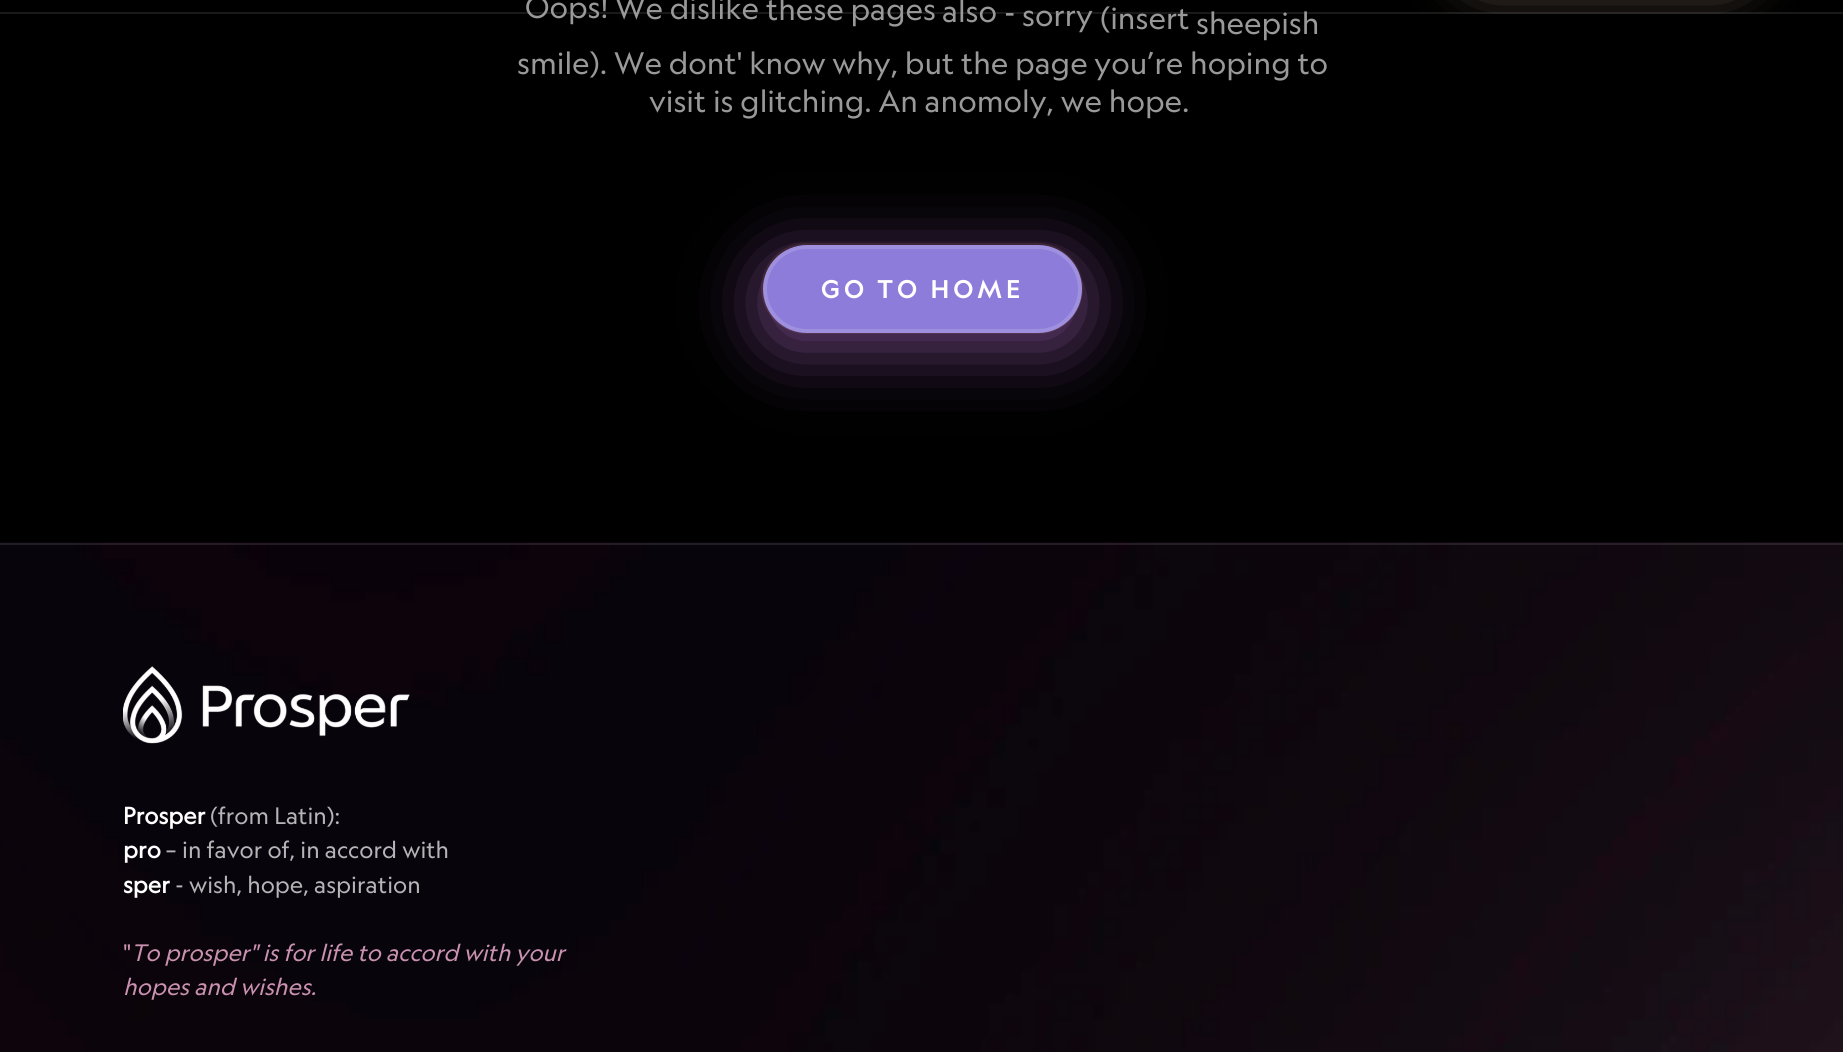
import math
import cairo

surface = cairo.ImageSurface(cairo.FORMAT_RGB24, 1843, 1052)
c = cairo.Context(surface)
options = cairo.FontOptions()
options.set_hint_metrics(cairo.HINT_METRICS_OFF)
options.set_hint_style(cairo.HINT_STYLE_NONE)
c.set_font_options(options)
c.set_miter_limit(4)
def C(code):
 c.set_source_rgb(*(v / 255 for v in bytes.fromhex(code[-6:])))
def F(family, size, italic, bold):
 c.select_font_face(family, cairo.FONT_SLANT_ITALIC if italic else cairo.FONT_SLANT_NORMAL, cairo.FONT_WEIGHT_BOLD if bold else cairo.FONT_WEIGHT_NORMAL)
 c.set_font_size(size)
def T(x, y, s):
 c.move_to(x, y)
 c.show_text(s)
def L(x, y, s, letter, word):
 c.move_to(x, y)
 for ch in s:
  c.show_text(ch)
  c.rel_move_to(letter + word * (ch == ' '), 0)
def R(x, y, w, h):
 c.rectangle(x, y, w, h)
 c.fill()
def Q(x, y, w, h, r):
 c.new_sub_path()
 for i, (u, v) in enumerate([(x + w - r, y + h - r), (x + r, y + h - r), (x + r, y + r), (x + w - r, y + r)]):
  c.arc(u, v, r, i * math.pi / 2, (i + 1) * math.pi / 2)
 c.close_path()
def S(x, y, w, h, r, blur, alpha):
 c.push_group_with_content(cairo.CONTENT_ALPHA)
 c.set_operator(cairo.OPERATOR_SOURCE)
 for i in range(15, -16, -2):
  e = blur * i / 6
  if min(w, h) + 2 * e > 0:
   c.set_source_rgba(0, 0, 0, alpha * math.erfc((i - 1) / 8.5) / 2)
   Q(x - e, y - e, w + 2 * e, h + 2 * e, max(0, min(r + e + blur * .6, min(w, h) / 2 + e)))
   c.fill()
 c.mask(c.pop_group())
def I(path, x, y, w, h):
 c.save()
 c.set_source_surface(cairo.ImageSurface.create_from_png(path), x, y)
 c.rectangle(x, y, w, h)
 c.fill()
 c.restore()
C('000000')
c.paint()
gradient = cairo.LinearGradient(922,-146,922,13)
gradient.add_color_stop_rgba(.07,0,0,0,0)
gradient.add_color_stop_rgba(1,0,0,0,.3)
c.set_source(gradient)
R(526,0,781,14)
c.save()
c.rectangle(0,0,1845,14)
c.clip()
C('fbd2b2')
S(1456,-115,301,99,49.5,26,.5)
c.restore()
c.set_source_rgba(1,1,1,0.1)
R(0,12,1843,2)
F('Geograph',29.75,0,0)
C('999999')
T(525,18,'Oops!')
T(615,19,'We dislike')
T(766,20,'these pages')
T(942,22,'also')
T(1004,23,'-')
T(1022,26,'sorry')
T(1100,29,'(insert')
T(1196,34,'sheepish')
T(517,74,'smile). We dont\' know why, but the page you’re hoping to')
T(649,112,'visit is glitching. An anomoly, we hope.')
Q(762,244,320,89,44.5)
C('1d1107')
c.stroke()
C('d682fa')
S(763,259,319,88,44,35,.5)
C('8d7cd9')
Q(763,245,319,88,44)
c.fill()
Q(765,247,315,84,42)
c.set_source_rgba(1,1,1,0.15)
c.set_line_width(4)
c.stroke()
F('Geograph Medium',24.5,0,0)
C('ffffff')
L(821,298,'GO TO HOME',4,0)
I('1.png',0,542,1843,510)
c.set_source_rgba(1,1,1,0.1)
R(0,543,1843,2)
I('2.png',123,666,287,78)
F('Geograph',22.75,0,1)
C('ffffff')
T(123,824,'Prosper')
F('Geograph',22.75,0,0)
C('b5b4b6')
T(210,824,'(from Latin):')
F('Geograph',22.75,0,1)
C('ffffff')
T(123,858,'pro')
F('Geograph',22.75,0,0)
C('b5b4b6')
T(165,858,'– in favor of, in accord with')
F('Geograph',22.75,0,1)
C('ffffff')
T(123,893,'sper')
F('Geograph',22.75,0,0)
C('b5b4b6')
T(175,893,'- wish, hope, aspiration')
C('ca91b1')
T(123,961,'"')
F('Geograph',22.75,1,0)
T(131,961,'To prosper" is for life to accord with your')
T(123,995,'hopes and wishes.')
surface.write_to_png('o.png')
